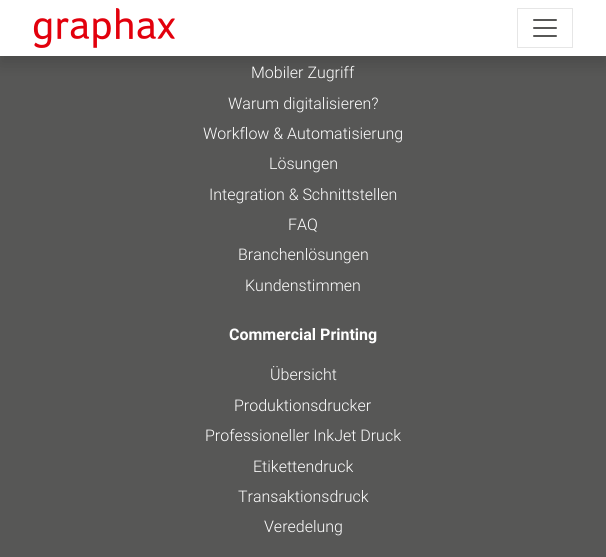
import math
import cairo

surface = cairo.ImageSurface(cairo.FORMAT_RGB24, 606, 557)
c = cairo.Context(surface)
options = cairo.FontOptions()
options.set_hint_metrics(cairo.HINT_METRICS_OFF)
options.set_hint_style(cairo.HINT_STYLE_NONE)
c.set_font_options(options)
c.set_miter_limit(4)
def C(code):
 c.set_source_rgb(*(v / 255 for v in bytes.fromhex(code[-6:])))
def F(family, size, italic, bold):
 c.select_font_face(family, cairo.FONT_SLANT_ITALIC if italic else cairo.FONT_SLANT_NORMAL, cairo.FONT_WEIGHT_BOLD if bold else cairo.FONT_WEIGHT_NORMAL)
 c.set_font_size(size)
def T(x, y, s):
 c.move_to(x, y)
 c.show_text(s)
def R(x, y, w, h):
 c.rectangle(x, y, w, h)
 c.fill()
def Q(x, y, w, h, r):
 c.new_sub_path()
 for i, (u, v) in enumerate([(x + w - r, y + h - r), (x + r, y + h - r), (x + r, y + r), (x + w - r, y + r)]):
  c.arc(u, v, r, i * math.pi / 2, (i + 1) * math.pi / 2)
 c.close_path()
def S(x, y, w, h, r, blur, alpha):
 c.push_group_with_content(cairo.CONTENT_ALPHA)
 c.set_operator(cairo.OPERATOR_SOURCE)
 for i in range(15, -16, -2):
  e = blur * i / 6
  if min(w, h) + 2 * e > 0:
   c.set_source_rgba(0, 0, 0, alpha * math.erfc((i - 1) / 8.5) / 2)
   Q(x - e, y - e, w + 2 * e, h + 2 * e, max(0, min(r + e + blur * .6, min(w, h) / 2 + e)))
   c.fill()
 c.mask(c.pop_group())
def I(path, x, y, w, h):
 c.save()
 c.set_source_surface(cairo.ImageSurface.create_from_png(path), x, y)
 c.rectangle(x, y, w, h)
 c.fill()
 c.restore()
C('575756')
c.paint()
C('000000')
S(0,8,606,56,0,8,.15)
C('ffffff')
R(0,0,606,56)
I('1.png',33,8,142,40)
c.rectangle(517.5,8.5,55,39)
C('e6e6e6')
c.set_line_width(1)
c.stroke()
I('2.png',533,19,24,18)
F('Roboto Light',16,0,0)
C('ffffff')
T(251,78,'Mobiler Zugriff')
T(228,109,'Warum digitalisieren?')
T(203,139,'Workflow & Automatisierung')
T(269,169,'Lösungen')
T(209,200,'Integration & Schnittstellen')
T(288,230,'FAQ')
T(238,260,'Branchenlösungen')
T(245,291,'Kundenstimmen')
F('Roboto',16,0,1)
T(229,340,'Commercial Printing')
F('Roboto Light',16,0,0)
T(270,380,'Übersicht')
T(234,411,'Produktionsdrucker')
T(205,441,'Professioneller InkJet Druck')
T(253,472,'Etikettendruck')
T(238,502,'Transaktionsdruck')
T(264,532,'Veredelung')
surface.write_to_png('o.png')
